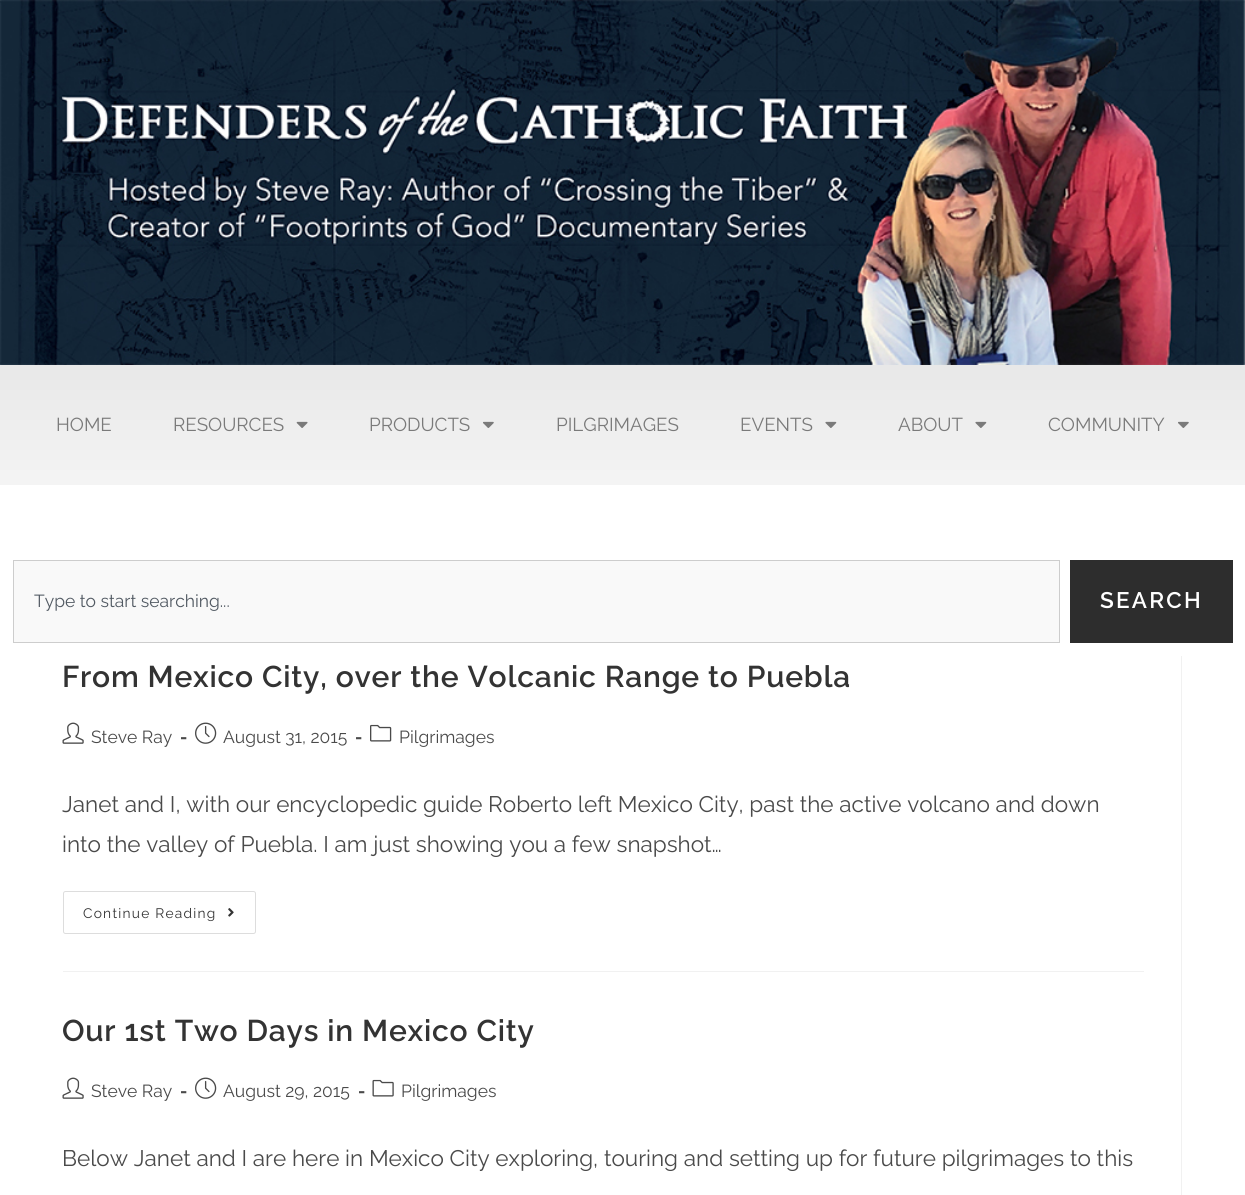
import math
import cairo

surface = cairo.ImageSurface(cairo.FORMAT_RGB24, 1245, 1195)
c = cairo.Context(surface)
options = cairo.FontOptions()
options.set_hint_metrics(cairo.HINT_METRICS_OFF)
options.set_hint_style(cairo.HINT_STYLE_NONE)
c.set_font_options(options)
c.set_miter_limit(4)
def C(code):
 c.set_source_rgb(*(v / 255 for v in bytes.fromhex(code[-6:])))
def F(family, size, italic, bold):
 c.select_font_face(family, cairo.FONT_SLANT_ITALIC if italic else cairo.FONT_SLANT_NORMAL, cairo.FONT_WEIGHT_BOLD if bold else cairo.FONT_WEIGHT_NORMAL)
 c.set_font_size(size)
def T(x, y, s):
 c.move_to(x, y)
 c.show_text(s)
def L(x, y, s, letter, word):
 c.move_to(x, y)
 for ch in s:
  c.show_text(ch)
  c.rel_move_to(letter + word * (ch == ' '), 0)
def R(x, y, w, h):
 c.rectangle(x, y, w, h)
 c.fill()
def Q(x, y, w, h, r):
 c.new_sub_path()
 for i, (u, v) in enumerate([(x + w - r, y + h - r), (x + r, y + h - r), (x + r, y + r), (x + w - r, y + r)]):
  c.arc(u, v, r, i * math.pi / 2, (i + 1) * math.pi / 2)
 c.close_path()
def I(path, x, y, w, h):
 c.save()
 c.set_source_surface(cairo.ImageSurface.create_from_png(path), x, y)
 c.rectangle(x, y, w, h)
 c.fill()
 c.restore()
C('ffffff')
c.paint()
I('1.png',0,0,1245,365)
gradient = cairo.LinearGradient(623,365,623,485)
gradient.add_color_stop_rgba(0,0.91,0.91,0.91,1)
gradient.add_color_stop_rgba(1,0.957,0.957,0.957,1)
c.set_source(gradient)
R(0,365,1245,120)
F('Raleway',18.75,0,0)
C('7a7a7a')
T(56,431,'HOME')
T(173,431,'RESOURCES')
I('2.png',296,421,12,7)
T(369,431,'PRODUCTS')
I('3.png',483,421,11,7)
T(556,431,'PILGRIMAGES')
T(740,431,'EVENTS')
I('4.png',825,421,12,7)
T(898,431,'ABOUT')
I('4.png',975,421,12,7)
T(1048,431,'COMMUNITY')
I('3.png',1178,421,11,7)
C('f9f9f9')
c.rectangle(13.5,560.5,1046,82)
c.fill_preserve()
C('cdcdcd')
c.set_line_width(1)
c.stroke()
F('Raleway',17.5,0,0)
C('515962')
T(34,607,'Type to start searching...')
C('2d2d2d')
R(1070,560,163,83)
F('Raleway SemiBold',22.5,0,0)
C('ffffff')
L(1100,608,'SEARCH',2.25,0)
C('f1f1f1')
R(1181,656,1,539)
R(63,971,1081,1)
F('Raleway SemiBold',30,0,0)
C('333333')
L(62,687,'From Mexico City, over the Volcanic Range to Puebla',.75,0)
I('5.png',62,722,22,22)
F('Raleway',17.5,0,0)
C('4a4a4a')
T(91,743,'Steve Ray')
F('Raleway',17.5,0,1)
T(180,743,'-')
I('6.png',195,722,22,22)
F('Raleway',17.5,0,0)
T(223,743,'August 31, 2015')
F('Raleway',17.5,0,1)
T(355,743,'-')
I('7.png',370,724,22,18)
F('Raleway',17.5,0,0)
T(399,743,'Pilgrimages')
F('Raleway',22.5,0,0)
T(62,812,'Janet and I, with our encyclopedic guide Roberto left Mexico City, past the active volcano and down')
T(62,852,'into the valley of Puebla. I am just showing you a few snapshot…')
Q(63.5,891.5,192,42,2)
C('dddddd')
c.stroke()
F('Raleway',13.75,0,0)
C('333333')
L(83,918,'Continue Reading',1.25,0)
I('8.png',228,908,6,9)
F('Raleway SemiBold',30,0,0)
L(62,1041,'Our 1st Two Days in Mexico City',.75,0)
I('5.png',62,1077,22,22)
F('Raleway',17.5,0,0)
C('4a4a4a')
T(91,1097,'Steve Ray')
F('Raleway',17.5,0,1)
T(180,1097,'-')
I('6.png',195,1077,22,22)
F('Raleway',17.5,0,0)
T(223,1097,'August 29, 2015')
F('Raleway',17.5,0,1)
T(358,1097,'-')
I('9.png',372,1079,22,18)
F('Raleway',17.5,0,0)
T(401,1097,'Pilgrimages')
F('Raleway',22.5,0,0)
T(62,1166,'Below Janet and I are here in Mexico City exploring, touring and setting up for future pilgrimages to this')
surface.write_to_png('o.png')
